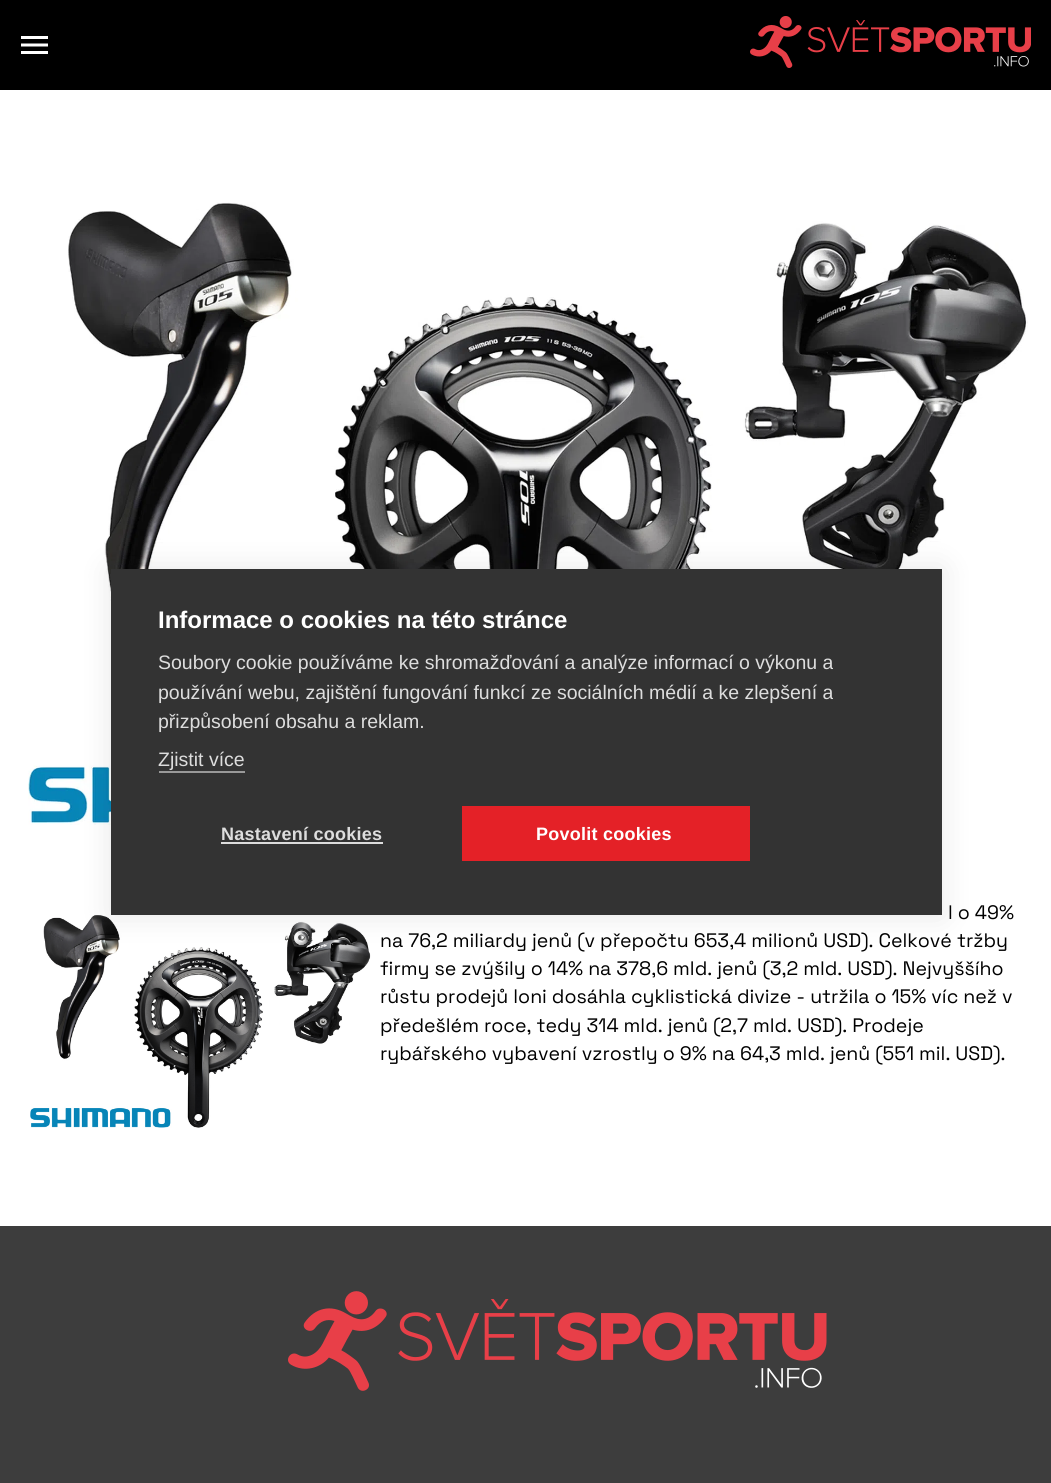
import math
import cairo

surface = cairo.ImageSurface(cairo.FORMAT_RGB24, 1051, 1483)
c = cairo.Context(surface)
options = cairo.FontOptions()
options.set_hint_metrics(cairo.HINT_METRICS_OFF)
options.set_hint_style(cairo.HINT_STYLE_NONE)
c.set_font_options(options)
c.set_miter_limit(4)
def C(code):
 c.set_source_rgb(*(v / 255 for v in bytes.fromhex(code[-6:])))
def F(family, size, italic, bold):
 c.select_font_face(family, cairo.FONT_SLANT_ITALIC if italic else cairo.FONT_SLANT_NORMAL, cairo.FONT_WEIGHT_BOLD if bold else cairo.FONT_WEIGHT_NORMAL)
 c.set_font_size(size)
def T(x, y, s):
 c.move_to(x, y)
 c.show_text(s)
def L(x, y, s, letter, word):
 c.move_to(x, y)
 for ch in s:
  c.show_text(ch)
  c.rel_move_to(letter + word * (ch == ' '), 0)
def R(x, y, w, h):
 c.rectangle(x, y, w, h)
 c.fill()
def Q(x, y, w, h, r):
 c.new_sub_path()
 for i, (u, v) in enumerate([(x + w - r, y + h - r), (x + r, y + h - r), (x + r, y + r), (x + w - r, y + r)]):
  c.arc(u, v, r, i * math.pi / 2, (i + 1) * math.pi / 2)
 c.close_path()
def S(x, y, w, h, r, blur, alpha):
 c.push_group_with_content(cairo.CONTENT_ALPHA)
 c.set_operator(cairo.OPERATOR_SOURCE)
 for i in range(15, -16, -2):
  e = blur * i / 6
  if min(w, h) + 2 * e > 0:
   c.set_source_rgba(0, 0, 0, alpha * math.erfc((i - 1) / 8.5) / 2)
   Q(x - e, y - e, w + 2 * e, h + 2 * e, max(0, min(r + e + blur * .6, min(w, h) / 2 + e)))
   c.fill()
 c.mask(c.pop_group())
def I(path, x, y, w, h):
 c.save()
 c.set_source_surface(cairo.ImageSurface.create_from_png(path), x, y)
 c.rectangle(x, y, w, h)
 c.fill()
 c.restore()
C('3d3d3d')
c.paint()
C('000000')
R(0,0,1051,90)
I('1.png',21,36,27,18)
I('2.png',750,16,281,52)
C('ffffff')
R(0,90,1051,1136)
I('3.png',28,202,1000,623)
I('4.png',30,915,341,213)
C('000000')
S(111,569,831,346,0,15,.1)
C('333333')
R(111,569,831,346)
F('Liberation Sans',24,0,1)
C('ffffff')
T(158,628,'Informace o cookies na této stránce')
F('Liberation Sans',19.5,0,0)
C('dddddd')
T(158,669,'Soubory cookie používáme ke shromažďování a analýze informací o výkonu a')
T(158,699,'používání webu, zajištění fungování funkcí ze sociálních médií a ke zlepšení a')
T(158,728,'přizpůsobení obsahu a reklam.')
T(158,766,'Zjistit více')
C('999999')
R(159,771,86,2)
F('Liberation Sans',18,0,1)
C('dddddd')
L(221,840,'Nastavení cookies',.25,0)
R(221,842,162,2)
C('e42127')
R(462,806,288,55)
C('ffffff')
L(536,840,'Povolit cookies',.25,0)
F('Space Grotesk',19.5,0,0)
C('000000')
T(948,919,'l o 49%')
T(380,947,'na 76,2 miliardy jenů (v přepočtu 653,4 milionů USD). Celkové tržby')
T(380,975,'firmy se zvýšily o 14% na 378,6 mld. jenů (3,2 mld. USD). Nejvyššího')
T(380,1003,'růstu prodejů loni dosáhla cyklistická divize - utržila o 15% víc než v')
T(380,1032,'předešlém roce, tedy 314 mld. jenů (2,7 mld. USD). Prodeje')
T(380,1060,'rybářského vybavení vzrostly o 9% na 64,3 mld. jenů (551 mil. USD).')
I('5.png',288,1291,539,100)
surface.write_to_png('o.png')
